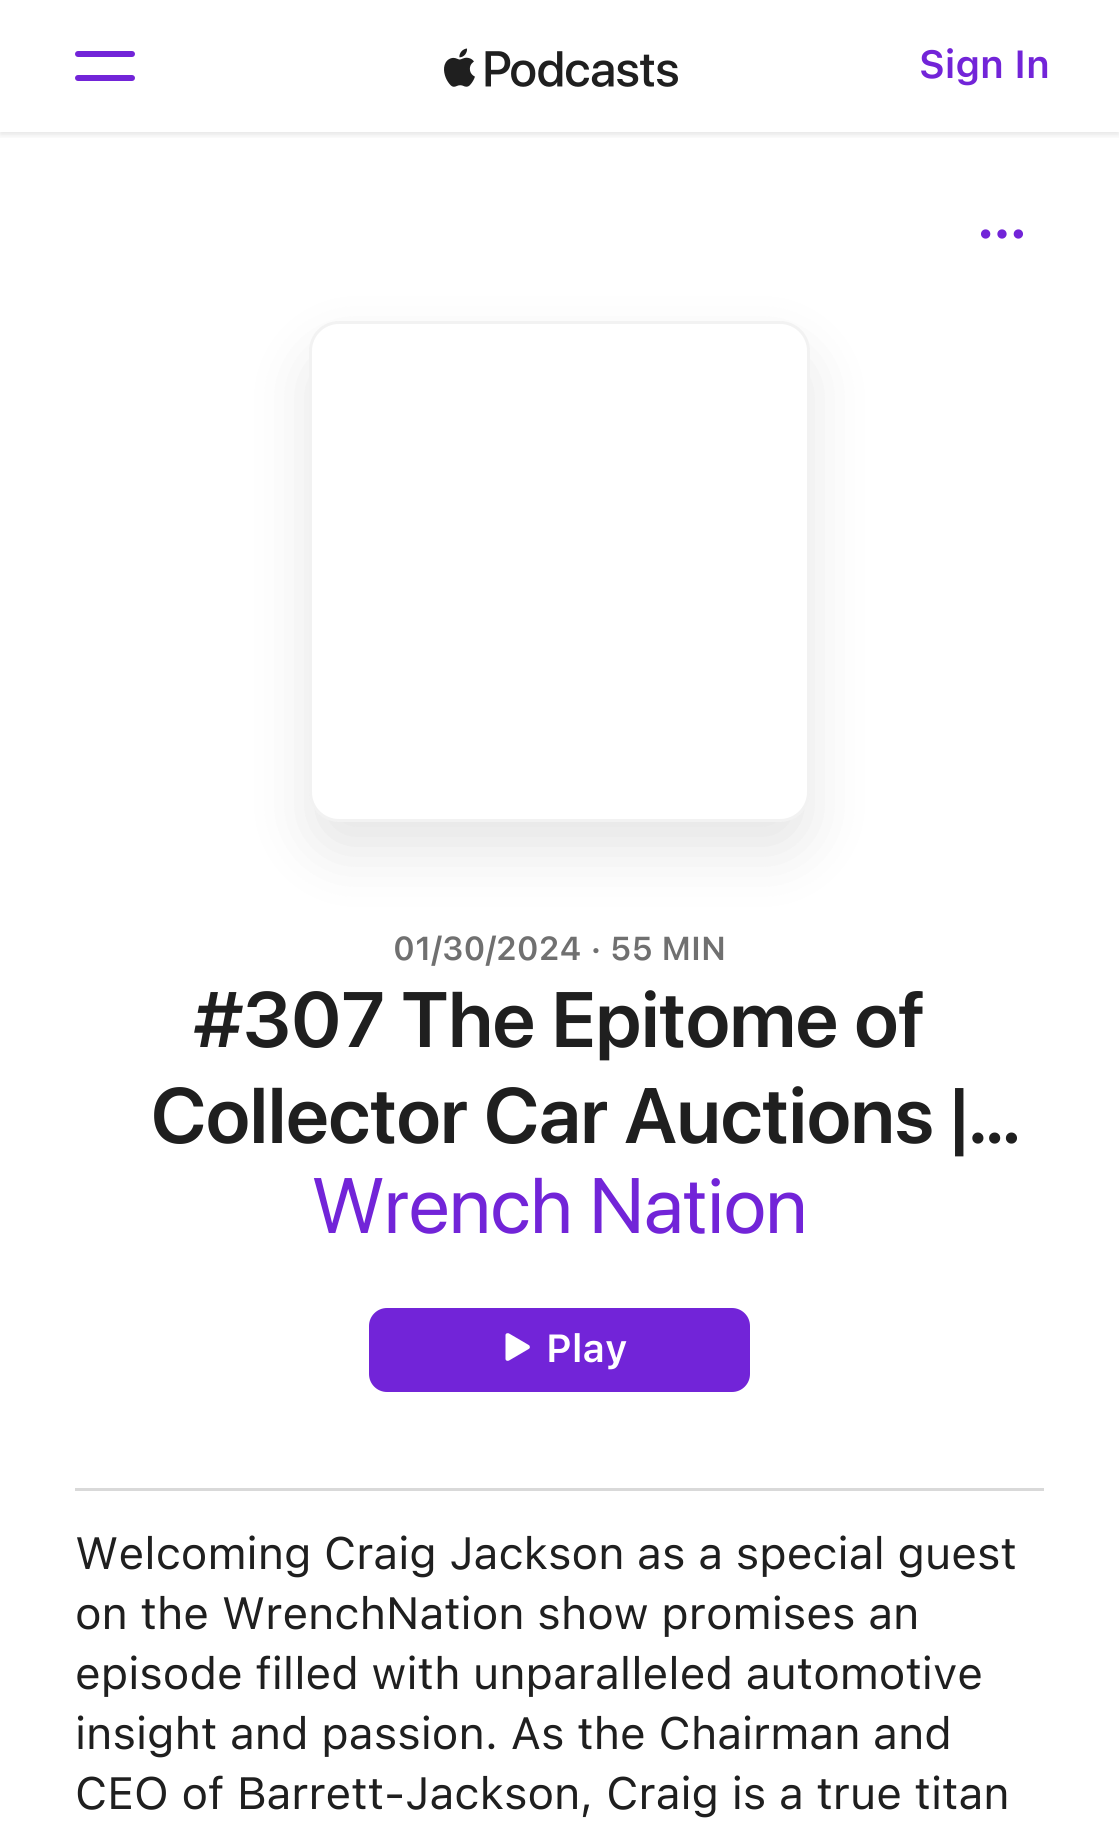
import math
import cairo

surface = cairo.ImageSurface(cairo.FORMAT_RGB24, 1119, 1844)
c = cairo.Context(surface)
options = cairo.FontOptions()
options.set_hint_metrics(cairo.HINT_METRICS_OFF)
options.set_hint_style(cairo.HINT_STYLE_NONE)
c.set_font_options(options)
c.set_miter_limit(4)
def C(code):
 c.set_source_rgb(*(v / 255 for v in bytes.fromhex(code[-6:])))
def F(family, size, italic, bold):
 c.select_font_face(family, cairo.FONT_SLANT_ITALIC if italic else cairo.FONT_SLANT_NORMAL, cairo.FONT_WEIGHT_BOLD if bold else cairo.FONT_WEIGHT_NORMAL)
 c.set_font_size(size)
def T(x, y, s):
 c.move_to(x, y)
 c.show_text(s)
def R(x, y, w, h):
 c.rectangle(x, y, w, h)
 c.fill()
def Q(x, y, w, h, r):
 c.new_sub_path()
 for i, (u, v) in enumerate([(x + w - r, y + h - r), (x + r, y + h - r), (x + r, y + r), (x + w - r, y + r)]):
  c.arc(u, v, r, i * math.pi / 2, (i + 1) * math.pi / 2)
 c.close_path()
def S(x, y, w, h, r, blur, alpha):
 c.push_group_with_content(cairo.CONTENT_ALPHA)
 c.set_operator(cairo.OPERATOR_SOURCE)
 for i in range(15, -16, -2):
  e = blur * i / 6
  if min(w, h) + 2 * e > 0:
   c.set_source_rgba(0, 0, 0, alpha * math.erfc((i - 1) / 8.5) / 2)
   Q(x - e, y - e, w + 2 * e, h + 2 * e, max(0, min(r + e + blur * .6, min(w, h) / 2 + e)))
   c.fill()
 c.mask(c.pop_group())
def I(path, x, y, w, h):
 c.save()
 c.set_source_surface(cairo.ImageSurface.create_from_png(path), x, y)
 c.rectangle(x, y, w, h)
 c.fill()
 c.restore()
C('ffffff')
c.paint()
c.save()
c.rectangle(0,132,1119,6)
c.clip()
C('000000')
S(0,3,1119,132,0,3,.1)
c.restore()
C('7224d8')
Q(75,51,60,6,3)
c.fill()
Q(75,75,60,6,3)
c.fill()
I('1.png',444,48,234,39)
F('SF SemiBold',39,0,0)
T(919,78,'Sign In')
I('2.png',981,229,42,10)
C('000000')
S(309,351,501,501,30,30,.1)
C('ffffff')
Q(309,321,501,501,30)
c.fill()
Q(310.5,322.5,498,498,28.5)
c.set_source_rgba(0.502,0.502,0.502,0.1)
c.set_line_width(3)
c.stroke()
F('SF SemiBold',33,0,0)
C('707070')
T(393,960,'01/30/2024 · 55 MIN')
F('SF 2 SemiBold',78,0,0)
C('1f1f1f')
T(194,1047,'#307 The Epitome of')
T(151,1143,'Collector Car Auctions |…')
F('SF',78,0,0)
C('7224d8')
T(312,1233,'Wrench Nation')
Q(369,1308,381,84,18)
c.fill()
I('3.png',505,1333,25,28)
F('SF SemiBold',39,0,0)
C('ffffff')
T(546,1362,'Play')
C('d9d9d9')
R(75,1488,969,3)
F('SF 2',45,0,0)
C('1f1f1f')
T(75,1569,'Welcoming Craig Jackson as a special guest')
T(75,1629,'on the WrenchNation show promises an')
T(75,1689,'episode filled with unparalleled automotive')
T(75,1749,'insight and passion. As the Chairman and')
T(75,1809,'CEO of Barrett-Jackson, Craig is a true titan')
surface.write_to_png('o.png')
